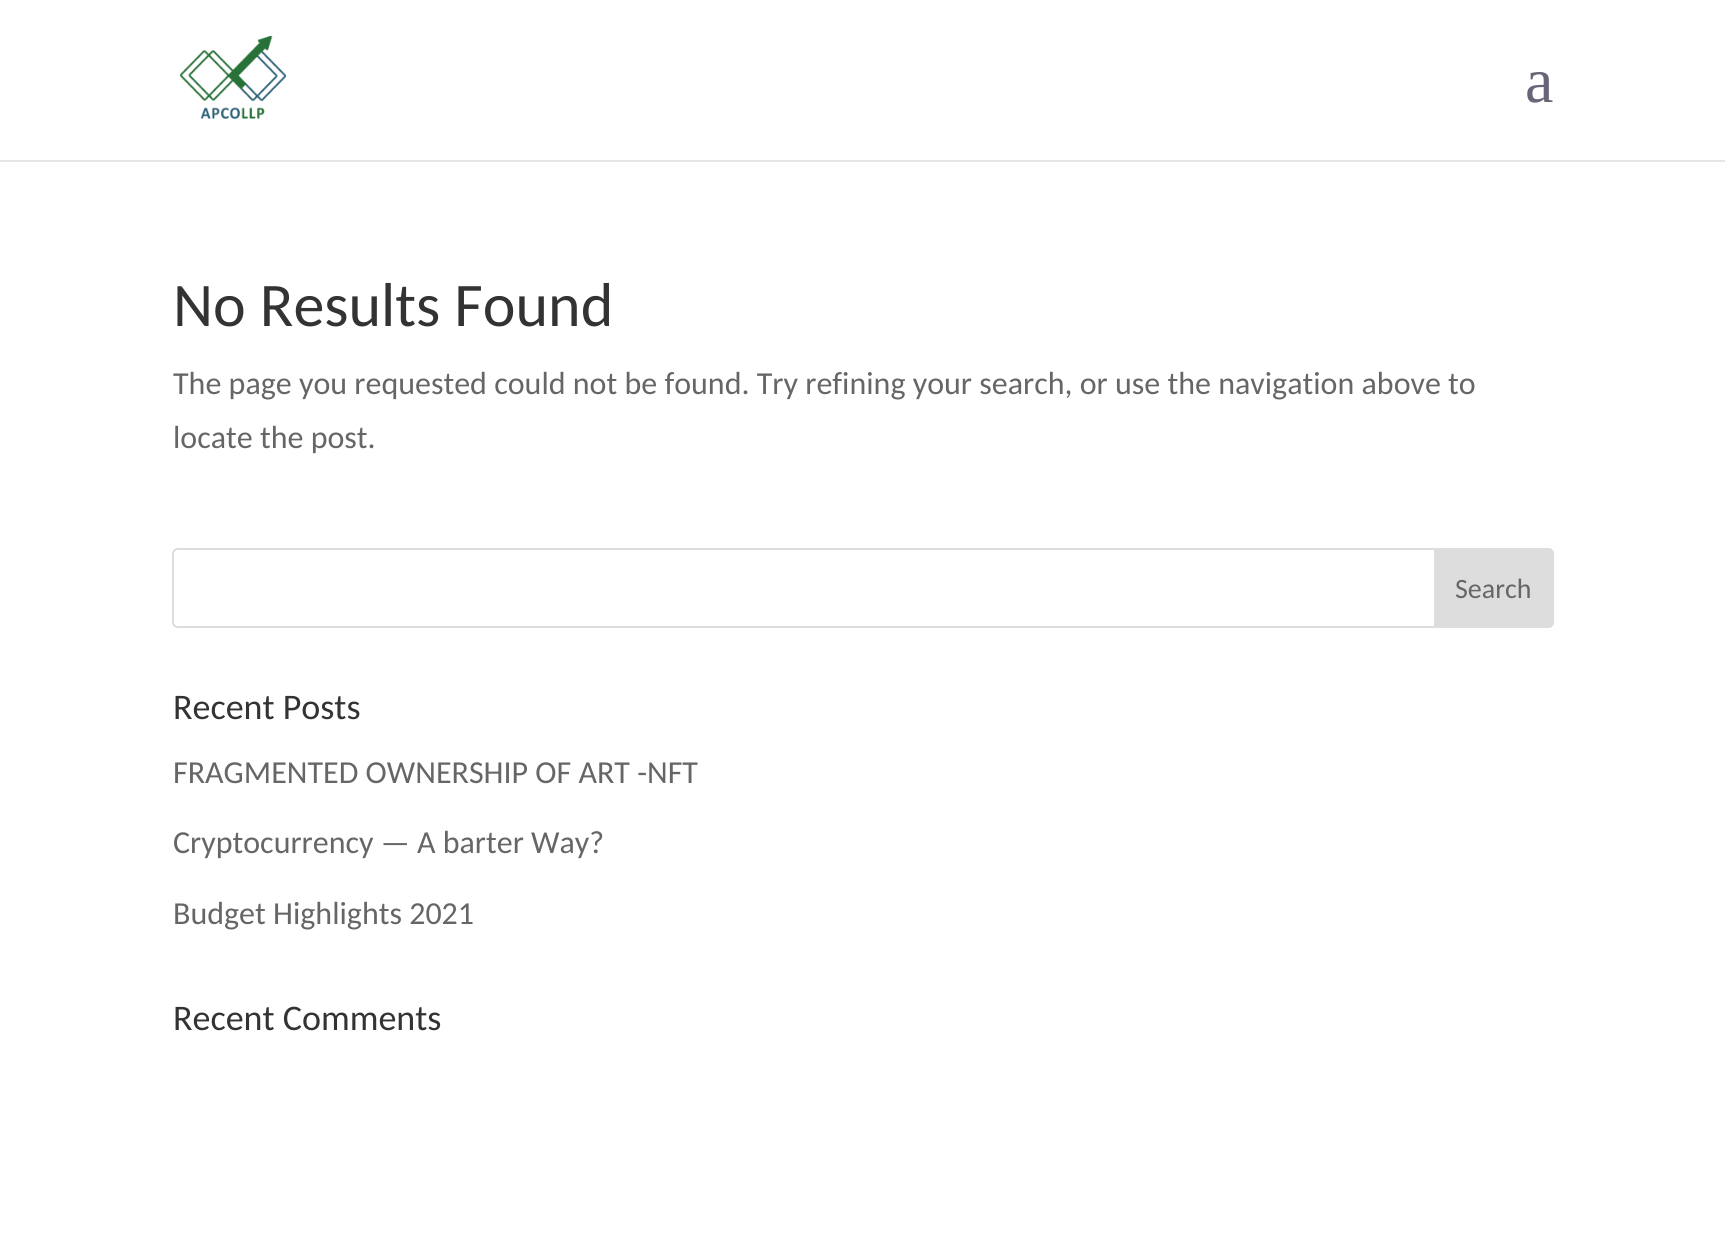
import math
import cairo

surface = cairo.ImageSurface(cairo.FORMAT_RGB24, 1725, 1252)
c = cairo.Context(surface)
options = cairo.FontOptions()
options.set_hint_metrics(cairo.HINT_METRICS_OFF)
options.set_hint_style(cairo.HINT_STYLE_NONE)
c.set_font_options(options)
c.set_miter_limit(4)
def C(code):
 c.set_source_rgb(*(v / 255 for v in bytes.fromhex(code[-6:])))
def F(family, size, italic, bold):
 c.select_font_face(family, cairo.FONT_SLANT_ITALIC if italic else cairo.FONT_SLANT_NORMAL, cairo.FONT_WEIGHT_BOLD if bold else cairo.FONT_WEIGHT_NORMAL)
 c.set_font_size(size)
def T(x, y, s):
 c.move_to(x, y)
 c.show_text(s)
def R(x, y, w, h):
 c.rectangle(x, y, w, h)
 c.fill()
def Q(x, y, w, h, r):
 c.new_sub_path()
 for i, (u, v) in enumerate([(x + w - r, y + h - r), (x + r, y + h - r), (x + r, y + r), (x + w - r, y + r)]):
  c.arc(u, v, r, i * math.pi / 2, (i + 1) * math.pi / 2)
 c.close_path()
def I(path, x, y, w, h):
 c.save()
 c.set_source_surface(cairo.ImageSurface.create_from_png(path), x, y)
 c.rectangle(x, y, w, h)
 c.fill()
 c.restore()
C('ffffff')
c.paint()
C('e6e6e6')
R(0,160,1725,2)
I('1.png',180,36,106,83)
F('Liberation Serif',64,0,0)
C('676678')
T(1525,102,'a')
F('Carlito',62,0,0)
C('333333')
T(173,326,'No Results Found')
F('Carlito',32,0,0)
C('666666')
T(173,394,'The page you requested could not be found. Try refining your search, or use the navigation above to')
T(173,448,'locate the post.')
Q(173,549,1380,78,5)
C('dddddd')
c.stroke()
c.new_path()
c.move_to(1435,549)
c.line_to(1548,549)
c.curve_to(1551,549,1553,551,1553,554)
c.line_to(1553,622)
c.curve_to(1553,625,1551,627,1548,627)
c.line_to(1435,627)
c.close_path()
c.fill_preserve()
c.stroke()
F('Carlito',28,0,0)
C('666666')
T(1455,598,'Search')
F('Carlito',36,0,0)
C('333333')
T(173,719,'Recent Posts')
F('Carlito',32,0,0)
C('666666')
T(173,783,'FRAGMENTED OWNERSHIP OF ART -NFT')
T(173,853,'Cryptocurrency — A barter Way?')
T(173,924,'Budget Highlights 2021')
F('Carlito',36,0,0)
C('333333')
T(173,1030,'Recent Comments')
surface.write_to_png('o.png')
